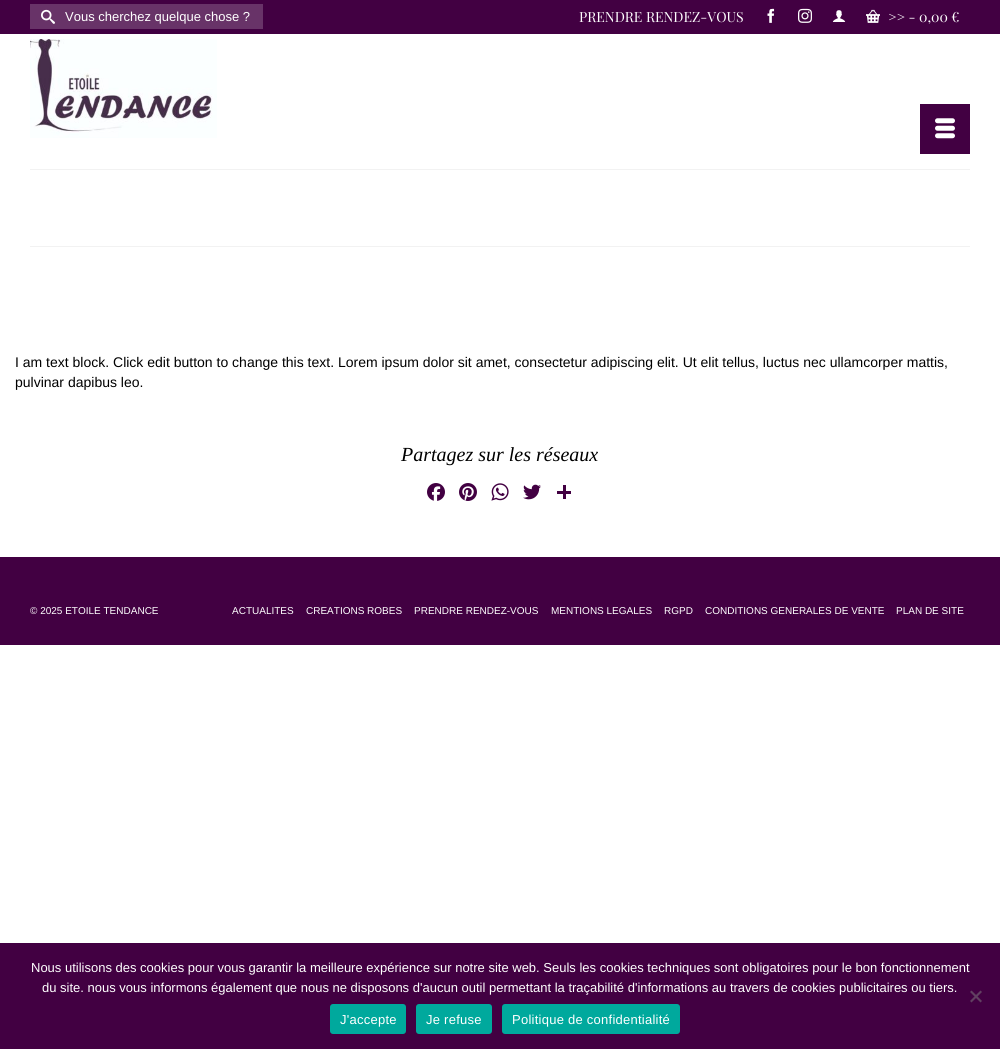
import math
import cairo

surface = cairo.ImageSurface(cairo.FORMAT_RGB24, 1000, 1049)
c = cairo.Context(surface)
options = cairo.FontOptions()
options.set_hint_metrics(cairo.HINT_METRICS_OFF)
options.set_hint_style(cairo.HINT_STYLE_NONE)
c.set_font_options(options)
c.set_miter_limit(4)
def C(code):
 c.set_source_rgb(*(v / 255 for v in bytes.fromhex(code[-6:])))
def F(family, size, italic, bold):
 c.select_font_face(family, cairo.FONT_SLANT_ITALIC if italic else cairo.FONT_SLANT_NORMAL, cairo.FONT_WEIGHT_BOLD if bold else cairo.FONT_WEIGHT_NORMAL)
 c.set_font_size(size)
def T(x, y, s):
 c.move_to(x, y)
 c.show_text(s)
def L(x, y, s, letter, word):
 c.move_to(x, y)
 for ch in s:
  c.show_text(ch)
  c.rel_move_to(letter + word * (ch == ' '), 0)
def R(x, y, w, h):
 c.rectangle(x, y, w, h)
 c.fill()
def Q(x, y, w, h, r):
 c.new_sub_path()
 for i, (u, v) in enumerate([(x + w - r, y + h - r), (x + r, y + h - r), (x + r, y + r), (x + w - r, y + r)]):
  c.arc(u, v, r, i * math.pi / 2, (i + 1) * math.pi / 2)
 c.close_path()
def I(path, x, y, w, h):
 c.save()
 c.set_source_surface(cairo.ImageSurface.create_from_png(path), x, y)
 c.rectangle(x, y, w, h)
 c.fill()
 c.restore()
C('ffffff')
c.paint()
C('420042')
R(0,0,1000,34)
C('683368')
R(30,4,233,25)
I('1.png',41,9,14,15)
F('Liberation Sans',13,0,0)
C('ffffff')
T(65,21,'Vous cherchez quelque chose ?')
F('Playfair Display',14,0,0)
T(579,22,'PRENDRE RENDEZ-VOUS')
I('2.png',767,8,8,15)
I('3.png',798,8,14,15)
I('4.png',832,10,14,12)
I('5.png',866,9,14,14)
T(888,22,'>> - 0,00 €')
I('6.png',30,39,187,99)
C('420042')
R(920,104,50,50)
I('7.png',935,118,20,21)
C('f2f2f2')
R(30,169,940,1)
R(30,246,940,1)
F('Liberation Sans',14,0,0)
C('000000')
T(15,367,'I am text block. Click edit button to change this text. Lorem ipsum dolor sit amet, consectetur adipiscing elit. Ut elit tellus, luctus nec ullamcorper mattis,')
T(15,387,'pulvinar dapibus leo.')
F('Liberation Serif',20,1,0)
T(401,461,'Partagez sur les réseaux')
I('8.png',427,483,18,18)
I('9.png',459,483,18,18)
I('10.png',491,483,18,18)
I('11.png',523,484,18,16)
C('420042')
R(563,485,3,14)
R(557,491,14,3)
R(0,557,1000,88)
F('Liberation Sans',10,0,0)
C('ffffff')
T(30,614,'© 2025 ETOILE TENDANCE')
T(232,614,'ACTUALITES')
T(306,614,'CREATIONS ROBES')
T(414,614,'PRENDRE RENDEZ-VOUS')
T(551,614,'MENTIONS LEGALES')
T(664,614,'RGPD')
T(705,614,'CONDITIONS GENERALES DE VENTE')
T(896,614,'PLAN DE SITE')
C('420042')
R(0,943,1000,106)
F('Liberation Sans',13,0,0)
C('ffffff')
T(31,972,'Nous utilisons des cookies pour vous garantir la meilleure expérience sur notre site web. Seuls les cookies techniques sont obligatoires pour le bon fonctionnement')
T(42,992,'du site. nous vous informons également que nous ne disposons d\'aucun outil permettant la traçabilité d\'informations au travers de cookies publicitaires ou tiers.')
C('614061')
c.new_path()
c.move_to(980.5,990.5)
c.line_to(982,992)
c.line_to(971.5,1002.5)
c.line_to(970,1001)
c.close_path()
c.fill()
c.new_path()
c.move_to(970,992)
c.line_to(971.5,990.5)
c.line_to(982,1001)
c.line_to(980.5,1002.5)
c.close_path()
c.fill()
C('00a99d')
Q(330,1004,76,30,3)
c.fill()
C('ffffff')
L(340,1024,'J\'accepte',.25,0)
C('00a99d')
Q(416,1004,76,30,3)
c.fill()
C('ffffff')
L(426,1024,'Je refuse',.25,0)
C('00a99d')
Q(502,1004,178,30,3)
c.fill()
C('ffffff')
L(512,1024,'Politique de confidentialité',.25,0)
surface.write_to_png('o.png')
